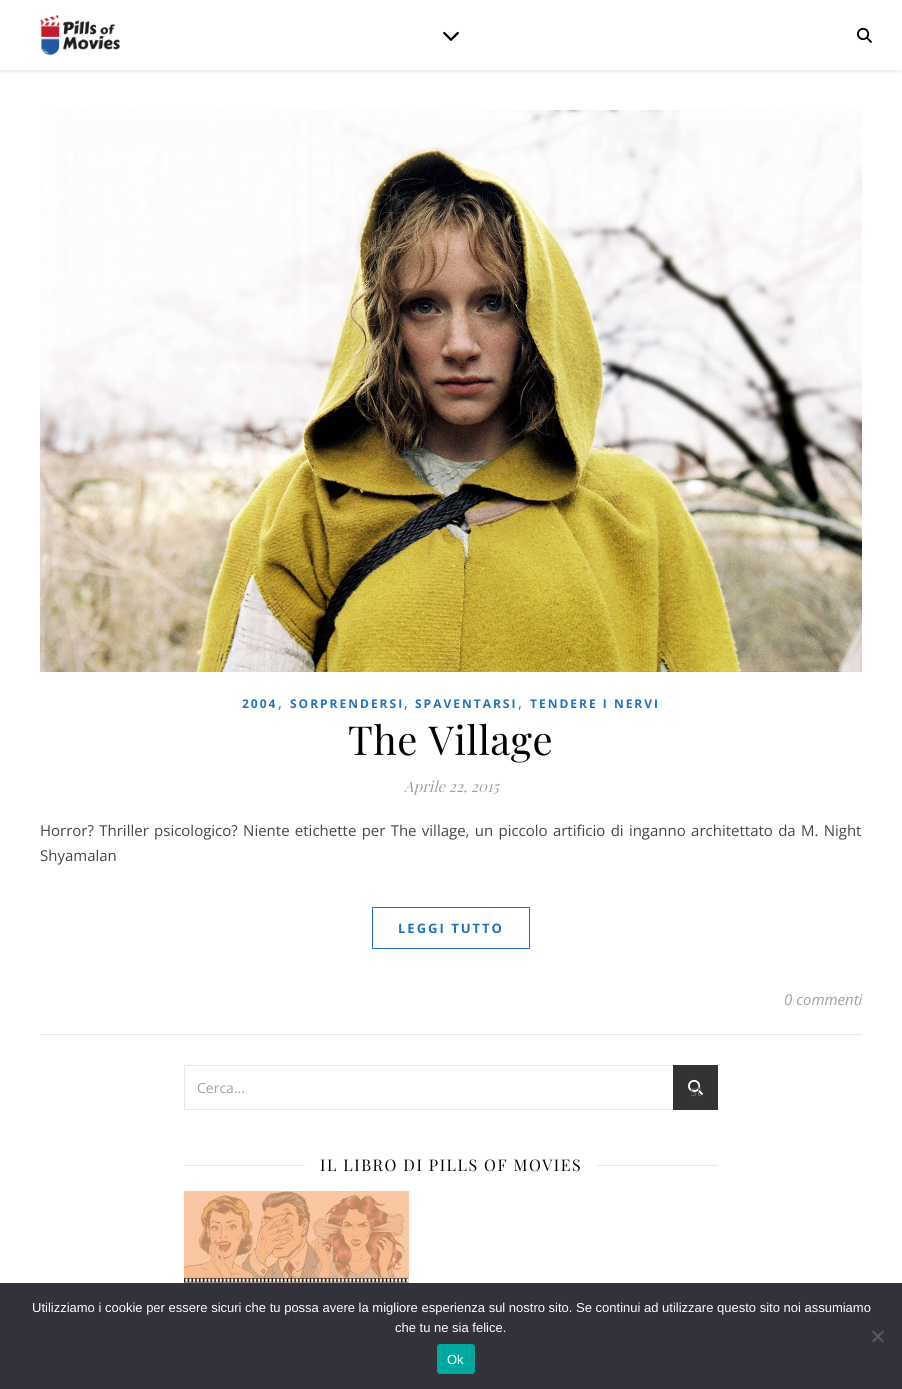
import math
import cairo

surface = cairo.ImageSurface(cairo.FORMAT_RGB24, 902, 1389)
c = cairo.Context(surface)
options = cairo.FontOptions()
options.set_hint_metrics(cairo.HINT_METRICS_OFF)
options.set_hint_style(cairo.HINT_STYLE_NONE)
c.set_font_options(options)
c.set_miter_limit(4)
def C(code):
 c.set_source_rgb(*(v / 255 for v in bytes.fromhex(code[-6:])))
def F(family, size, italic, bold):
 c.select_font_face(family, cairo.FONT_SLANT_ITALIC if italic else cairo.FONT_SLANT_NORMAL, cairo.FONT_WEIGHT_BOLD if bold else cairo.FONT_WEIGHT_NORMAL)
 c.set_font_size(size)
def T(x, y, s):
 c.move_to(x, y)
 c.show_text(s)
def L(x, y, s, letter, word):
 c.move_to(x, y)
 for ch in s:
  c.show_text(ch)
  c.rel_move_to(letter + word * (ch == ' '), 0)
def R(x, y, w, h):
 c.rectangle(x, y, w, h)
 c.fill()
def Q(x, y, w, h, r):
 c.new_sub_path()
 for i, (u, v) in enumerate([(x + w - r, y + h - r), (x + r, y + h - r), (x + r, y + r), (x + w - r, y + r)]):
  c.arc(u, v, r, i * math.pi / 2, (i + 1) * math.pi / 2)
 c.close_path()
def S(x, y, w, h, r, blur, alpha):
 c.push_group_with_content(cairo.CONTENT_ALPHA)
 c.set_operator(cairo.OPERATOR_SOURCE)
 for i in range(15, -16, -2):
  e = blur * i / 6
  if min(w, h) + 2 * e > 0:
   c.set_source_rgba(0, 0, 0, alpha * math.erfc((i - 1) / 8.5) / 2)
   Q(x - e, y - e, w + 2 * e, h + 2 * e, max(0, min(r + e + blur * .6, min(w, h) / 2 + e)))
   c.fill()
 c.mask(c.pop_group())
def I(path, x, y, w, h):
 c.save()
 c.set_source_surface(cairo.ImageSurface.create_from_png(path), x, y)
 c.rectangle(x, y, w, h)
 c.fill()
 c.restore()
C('ffffff')
c.paint()
c.save()
c.rectangle(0,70,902,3)
c.clip()
C('000000')
S(0,1,902,70,0,2.5,.1)
c.restore()
I('1.png',40,15,80,40)
I('2.png',443,31,16,10)
I('3.png',857,27,15,16)
I('4.png',40,110,822,562)
F('Open Sans',12,0,1)
C('1e73be')
L(242,708,'2004',2,0)
F('Open Sans',15,0,0)
T(278,708,',')
F('Open Sans',12,0,1)
L(290,708,'SORPRENDERSI',2,0)
F('Open Sans',15,0,0)
T(404,708,',')
F('Open Sans',12,0,1)
L(415,708,'SPAVENTARSI',2,0)
F('Open Sans',15,0,0)
T(518,708,',')
F('Open Sans',12,0,1)
L(530,708,'TENDERE I NERVI',2,0)
F('Playfair Display',40,0,0)
C('030303')
L(348,755,'The Village',.5,0)
F('Playfair Display',15,1,0)
C('a1a1a1')
T(404,792,'Aprile 22, 2015')
F('Open Sans',15,0,0)
C('464646')
L(40,836,'Horror? Thriller psicologico? Niente etichette per The village, un piccolo artificio di inganno architettato da M. Night',0,1.4)
T(40,861,'Shyamalan')
c.rectangle(372.5,907.5,157,41)
C('1e73be')
c.set_line_width(1)
c.stroke()
F('Open Sans',13,0,1)
L(398,933,'LEGGI TUTTO',2,0)
C('e8e8e8')
R(40,1034,822,1)
F('Open Sans',15,1,0)
C('a1a1a1')
T(784,1005,'0 commenti')
c.rectangle(184.5,1065.5,533,44)
C('e8e8e8')
c.stroke()
F('Open Sans',14,0,0)
C('a1a1a1')
T(197,1093,'Cerca...')
C('333333')
R(673,1065,45,45)
I('5.png',688,1079,15,16)
C('6e6e6e')
T(690,1096,'st')
C('e8e8e8')
R(184,1165,121,1)
F('Playfair Display',16,0,0)
C('030303')
L(320,1171,'IL LIBRO DI PILLS OF MOVIES',1.5,0)
C('e8e8e8')
R(597,1165,121,1)
I('6.png',184,1191,225,92)
C('32323a')
R(0,1283,902,106)
F('Liberation Sans',13,0,0)
C('ffffff')
T(32,1312,'Utilizziamo i cookie per essere sicuri che tu possa avere la migliore esperienza sul nostro sito. Se continui ad utilizzare questo sito noi assumiamo')
T(395,1332,'che tu ne sia felice.')
C('59595d')
c.new_path()
c.move_to(882.5,1330.5)
c.line_to(884,1332)
c.line_to(873.5,1342.5)
c.line_to(872,1341)
c.close_path()
c.fill()
c.new_path()
c.move_to(872,1332)
c.line_to(873.5,1330.5)
c.line_to(884,1341)
c.line_to(882.5,1342.5)
c.close_path()
c.fill()
C('00a99d')
Q(437,1344,38,30,3)
c.fill()
C('ffffff')
T(447,1364,'Ok')
surface.write_to_png('o.png')
